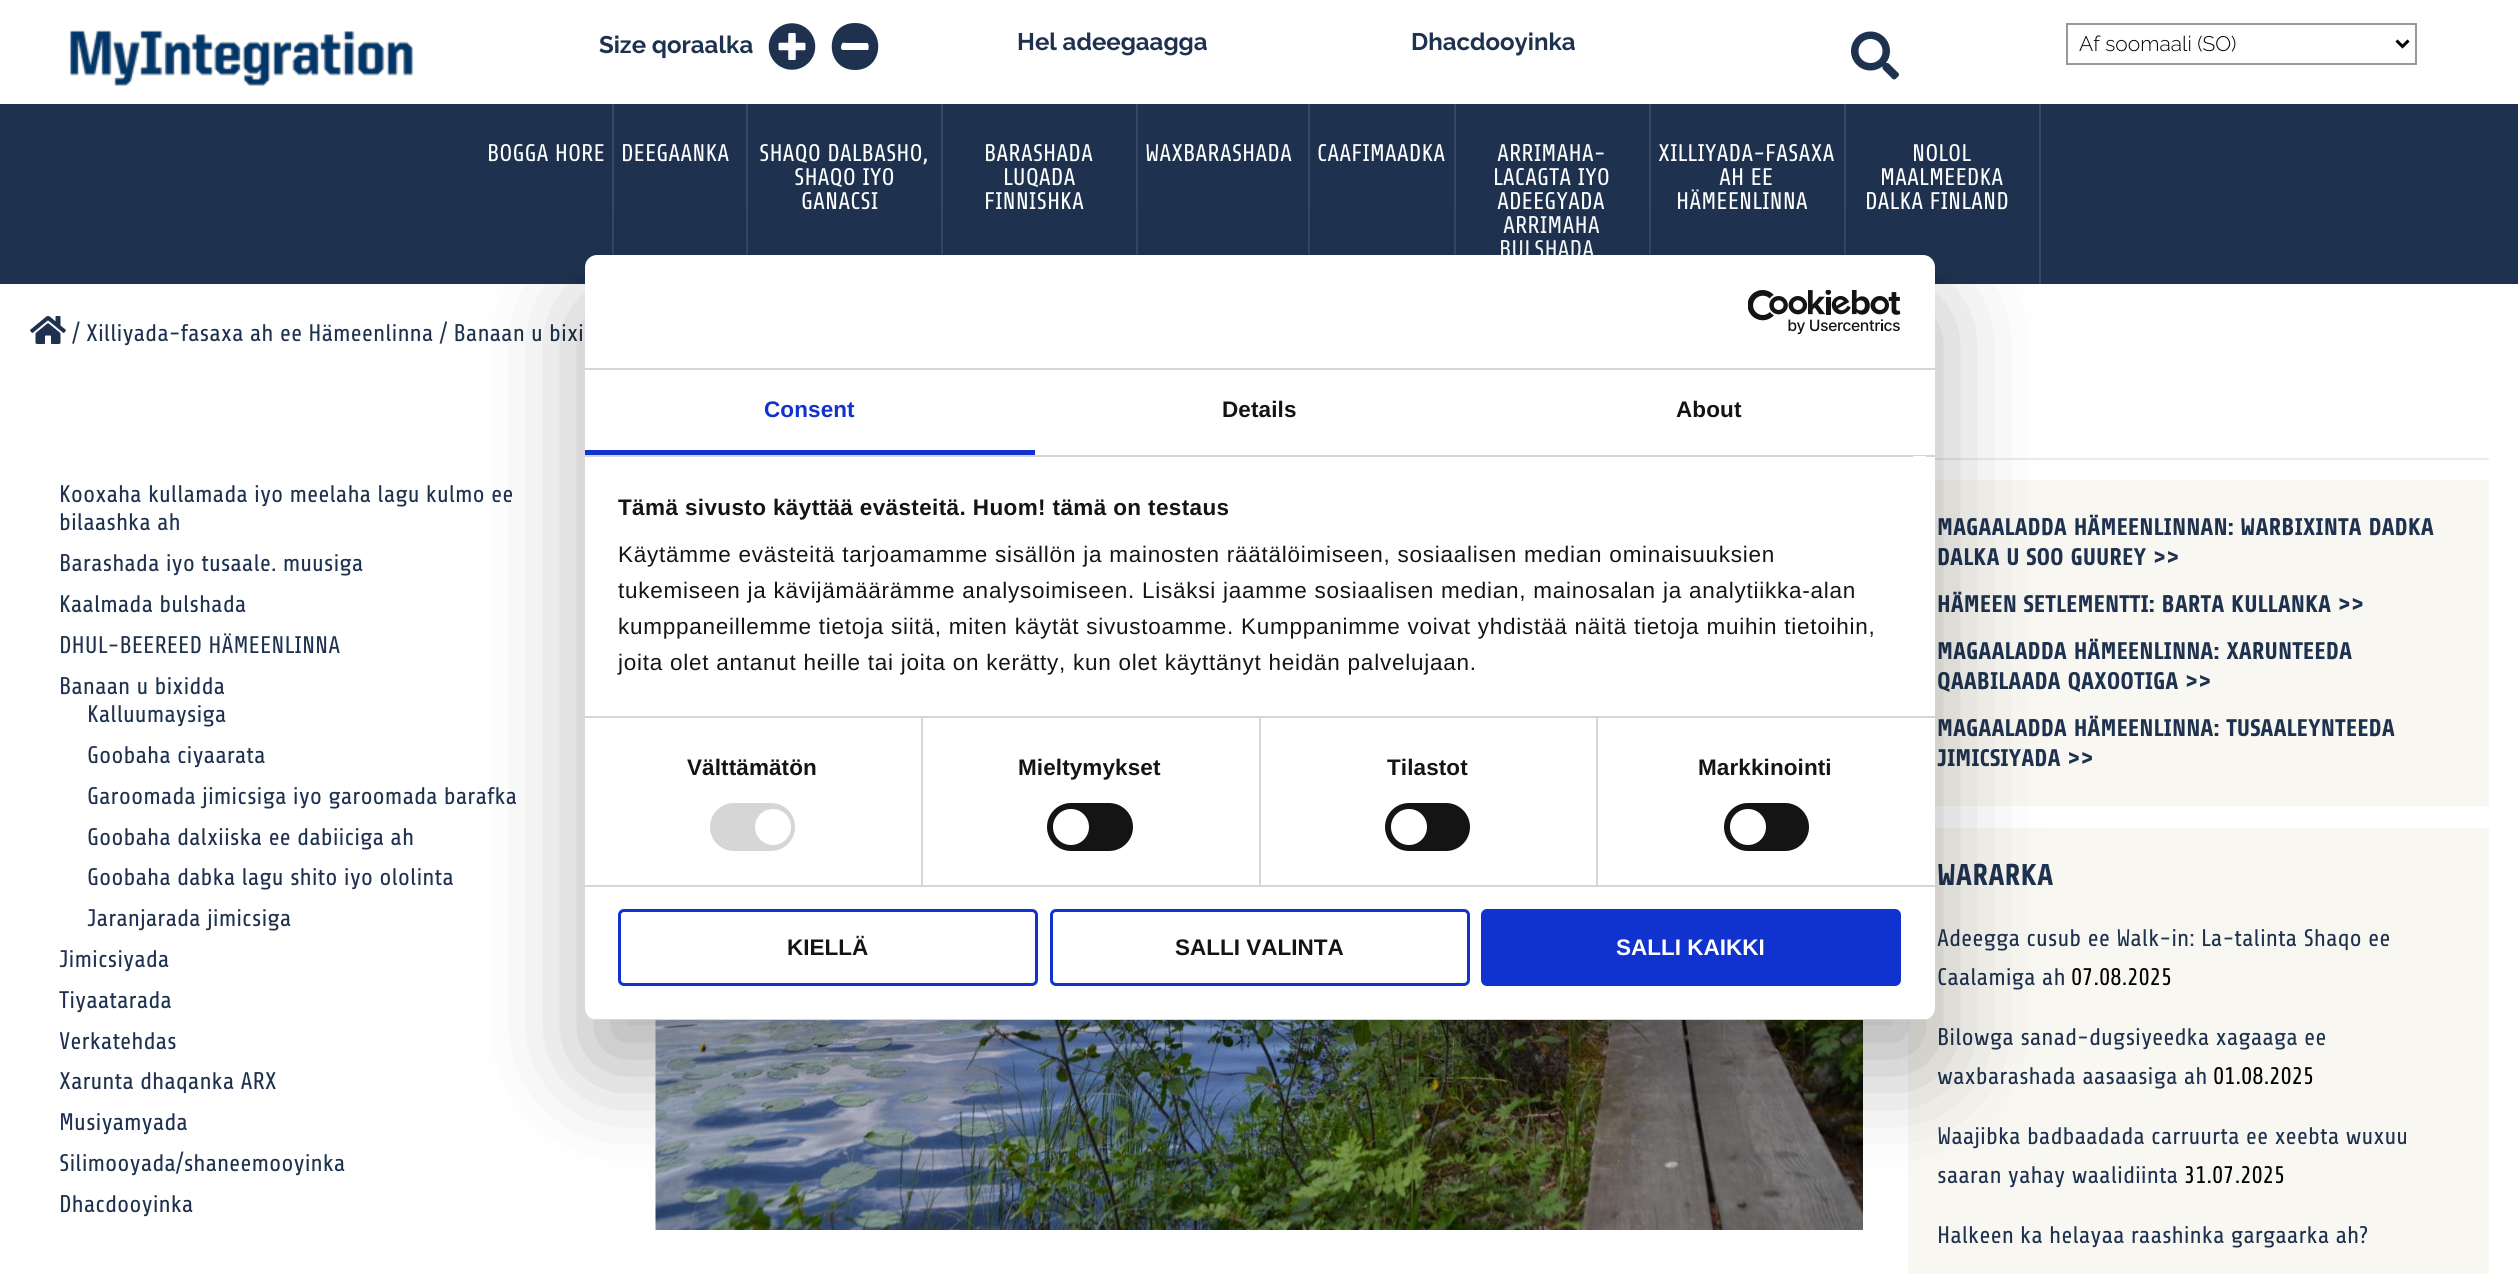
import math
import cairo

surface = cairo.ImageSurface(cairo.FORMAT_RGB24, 2518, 1274)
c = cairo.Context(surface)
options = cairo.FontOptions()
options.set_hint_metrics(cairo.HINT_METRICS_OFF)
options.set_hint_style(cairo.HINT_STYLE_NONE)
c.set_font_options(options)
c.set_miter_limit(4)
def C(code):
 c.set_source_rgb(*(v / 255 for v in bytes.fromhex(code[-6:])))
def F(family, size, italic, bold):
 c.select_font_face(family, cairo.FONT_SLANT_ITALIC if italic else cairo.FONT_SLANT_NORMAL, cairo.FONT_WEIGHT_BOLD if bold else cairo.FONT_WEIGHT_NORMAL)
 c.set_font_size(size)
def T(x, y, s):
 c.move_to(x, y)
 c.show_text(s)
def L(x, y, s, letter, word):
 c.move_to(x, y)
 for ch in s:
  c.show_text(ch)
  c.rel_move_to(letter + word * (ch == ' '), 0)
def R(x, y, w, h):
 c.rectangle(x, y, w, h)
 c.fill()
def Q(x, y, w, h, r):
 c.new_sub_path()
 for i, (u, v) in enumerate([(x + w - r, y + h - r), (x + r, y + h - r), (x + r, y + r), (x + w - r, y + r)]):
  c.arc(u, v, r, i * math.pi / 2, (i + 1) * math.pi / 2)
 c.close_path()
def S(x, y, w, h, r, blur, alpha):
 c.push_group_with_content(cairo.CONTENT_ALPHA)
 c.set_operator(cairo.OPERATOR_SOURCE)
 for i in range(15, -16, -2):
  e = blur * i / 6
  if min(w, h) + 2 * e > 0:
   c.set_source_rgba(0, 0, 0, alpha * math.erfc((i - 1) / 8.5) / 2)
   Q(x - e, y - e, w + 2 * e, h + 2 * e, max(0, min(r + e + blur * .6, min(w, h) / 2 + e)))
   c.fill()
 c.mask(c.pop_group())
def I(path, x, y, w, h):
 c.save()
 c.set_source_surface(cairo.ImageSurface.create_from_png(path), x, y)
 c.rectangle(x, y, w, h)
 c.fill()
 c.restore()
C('ffffff')
c.paint()
I('1.png',70,30,343,56)
F('Raleway',24,0,1)
C('1e3250')
T(599,53,'Size qoraalka')
I('2.png',768,23,48,47)
c.new_path()
c.move_to(855,23)
c.curve_to(824,23,824,70,855,70)
c.curve_to(886,70,886,23,855,23)
c.close_path()
c.move_to(843,50)
c.curve_to(840,50,841,45,842,44)
c.curve_to(842,42,845,43,847,43)
c.line_to(867,43)
c.curve_to(869,43,869,49,868,50)
c.close_path()
c.fill()
T(1017,50,'Hel adeegaagga')
T(1411,50,'Dhacdooyinka')
I('3.png',1851,31,48,49)
c.rectangle(2067,24,349,40)
C('999999')
c.stroke()
c.new_path()
c.move_to(2396.5,40.5)
c.line_to(2402.5,46.5)
c.line_to(2408.5,40.5)
C('000000')
c.set_line_width(3)
c.stroke()
F('Raleway Light',21,0,0)
T(2079,51,'Af soomaali (SO)')
C('1e3250')
R(0,104,2518,180)
C('354762')
R(612,104,2,151)
F('Share',24,0,0)
C('ffffff')
T(487,161,'BOGGA HORE')
C('354762')
R(746,104,2,151)
C('ffffff')
T(621,161,'DEEGAANKA')
C('354762')
R(941,104,2,151)
C('ffffff')
T(759,161,'SHAQO DALBASHO,')
T(794,185,'SHAQO IYO')
T(801,209,'GANACSI')
C('354762')
R(1136,104,2,151)
C('ffffff')
T(984,161,'BARASHADA')
T(1003,185,'LUQADA')
T(984,209,'FINNISHKA')
C('354762')
R(1308,104,2,151)
C('ffffff')
T(1145,161,'WAXBARASHADA')
C('354762')
R(1454,104,2,151)
C('ffffff')
T(1317,161,'CAAFIMAADKA')
C('354762')
R(1649,104,2,151)
C('ffffff')
T(1497,161,'ARRIMAHA-')
T(1493,185,'LACAGTA IYO')
T(1497,209,'ADEEGYADA')
T(1503,233,'ARRIMAHA')
T(1499,257,'BULSHADA')
C('354762')
R(1844,104,2,151)
C('ffffff')
T(1658,161,'XILLIYADA-FASAXA')
T(1719,185,'AH EE')
T(1676,209,'HÄMEENLINNA')
C('354762')
R(2039,104,2,180)
C('ffffff')
T(1912,161,'NOLOL')
T(1880,185,'MAALMEEDKA')
T(1865,209,'DALKA FINLAND')
I('4.png',30,316,36,28)
C('1e3250')
T(72,341,'/ Xilliyada-fasaxa ah ee Hämeenlinna / Banaan u bixi')
C('ebebeb')
R(1935,458,554,2)
C('1e3250')
T(59,502,'Kooxaha kullamada iyo meelaha lagu kulmo ee')
T(59,530,'bilaashka ah')
T(59,571,'Barashada iyo tusaale. muusiga')
T(59,612,'Kaalmada bulshada')
T(59,653,'DHUL-BEEREED HÄMEENLINNA')
T(59,694,'Banaan u bixidda')
T(87,722,'Kalluumaysiga')
T(87,763,'Goobaha ciyaarata')
T(87,804,'Garoomada jimicsiga iyo garoomada barafka')
T(87,845,'Goobaha dalxiiska ee dabiiciga ah')
T(87,885,'Goobaha dabka lagu shito iyo ololinta')
T(87,926,'Jaranjarada jimicsiga')
T(59,967,'Jimicsiyada')
T(59,1008,'Tiyaatarada')
T(59,1049,'Verkatehdas')
T(59,1089,'Xarunta dhaqanka ARX')
T(59,1130,'Musiyamyada')
T(59,1171,'Silimooyada/shaneemooyinka')
T(59,1212,'Dhacdooyinka')
I('5.png',655,1020,1208,210)
C('f9f7f1')
R(1935,480,554,326)
F('Share',24,0,1)
C('1e3250')
T(1937,535,'MAGAALADDA HÄMEENLINNAN: WARBIXINTA DADKA')
T(1937,565,'DALKA U SOO GUUREY >>')
T(1937,612,'HÄMEEN SETLEMENTTI: BARTA KULLANKA >>')
T(1937,659,'MAGAALADDA HÄMEENLINNA: XARUNTEEDA')
T(1937,689,'QAABILAADA QAXOOTIGA >>')
T(1937,736,'MAGAALADDA HÄMEENLINNA: TUSAALEYNTEEDA')
T(1937,766,'JIMICSIYADA >>')
C('f9f7f1')
R(1908,828,581,446)
F('Share',30,0,1)
C('1e3250')
T(1937,885,'WARARKA')
F('Share',24,0,0)
T(1937,946,'Adeegga cusub ee Walk-in: La-talinta Shaqo ee')
T(1937,985,'Caalamiga ah')
C('000000')
T(2071,985,'07.08.2025')
C('1e3250')
T(1937,1045,'Bilowga sanad-dugsiyeedka xagaaga ee')
T(1937,1084,'waxbarashada aasaasiga ah')
C('000000')
T(2213,1084,'01.08.2025')
C('1e3250')
T(1937,1144,'Waajibka badbaadada carruurta ee xeebta wuxuu')
T(1937,1183,'saaran yahay waalidiinta')
C('000000')
T(2184,1183,'31.07.2025')
C('1e3250')
T(1937,1243,'Halkeen ka helayaa raashinka gargaarka ah?')
C('000000')
S(585,303,1350,765,12,51,.3)
C('ffffff')
Q(585,255,1350,765,12)
c.fill()
C('d6d6d6')
R(585,368,1350,2)
I('6.png',1748,290,153,45)
R(585,455,1350,2)
C('1032cf')
R(585,450,450,5)
F('Liberation Sans',22.5,0,1)
L(764,417,'Consent',.1,0)
C('141414')
L(1222,417,'Details',.1,0)
L(1676,417,'About',.1,0)
C('d6d6d6')
R(921,717,2,168)
R(1259,717,2,168)
R(1596,717,2,168)
R(585,716,1350,2)
C('ffffff')
R(1913,456,13,1)
C('141414')
L(618,515,'Tämä sivusto käyttää evästeitä. Huom! tämä on testaus',.38,0)
F('Liberation Sans',22.5,0,0)
L(618,562,'Käytämme evästeitä tarjoamamme sisällön ja mainosten räätälöimiseen, sosiaalisen median ominaisuuksien',.75,0)
L(618,598,'tukemiseen ja kävijämäärämme analysoimiseen. Lisäksi jaamme sosiaalisen median, mainosalan ja analytiikka-alan',.75,0)
L(618,634,'kumppaneillemme tietoja siitä, miten käytät sivustoamme. Kumppanimme voivat yhdistää näitä tietoja muihin tietoihin,',.75,0)
L(618,670,'joita olet antanut heille tai joita on kerätty, kun olet käyttänyt heidän palvelujaan.',.75,0)
C('d6d6d6')
R(585,885,1350,2)
F('Liberation Sans',22.5,0,1)
C('141414')
L(687,775,'Välttämätön',.1,0)
C('d6d6d6')
Q(710,803,85,48,24)
c.fill()
C('ffffff')
c.arc(773,827,18,0,2 * math.pi)
c.fill()
C('141414')
L(1018,775,'Mieltymykset',.1,0)
Q(1047,803,86,48,24)
c.fill()
C('ffffff')
c.arc(1071,827,18,0,2 * math.pi)
c.fill()
C('141414')
L(1387,775,'Tilastot',.1,0)
Q(1385,803,85,48,24)
c.fill()
C('ffffff')
c.arc(1409,827,18,0,2 * math.pi)
c.fill()
C('141414')
L(1698,775,'Markkinointi',.1,0)
Q(1724,803,85,48,24)
c.fill()
C('ffffff')
c.arc(1748,827,18,0,2 * math.pi)
c.fill()
c.save()
Q(585,255,1350,765,12)
c.clip()
C('d6d6d6')
R(585,1019,1350,1)
c.restore()
Q(619.5,910.5,417,74,4.5)
C('1032cf')
c.stroke()
C('141414')
T(787,955,'KIELLÄ')
Q(1051.5,910.5,417,74,4.5)
C('1032cf')
c.stroke()
C('141414')
T(1175,955,'SALLI VALINTA')
C('1032cf')
Q(1482.5,910.5,417,74,4.5)
c.fill_preserve()
c.stroke()
C('ffffff')
T(1616,955,'SALLI KAIKKI')
surface.write_to_png('o.png')
